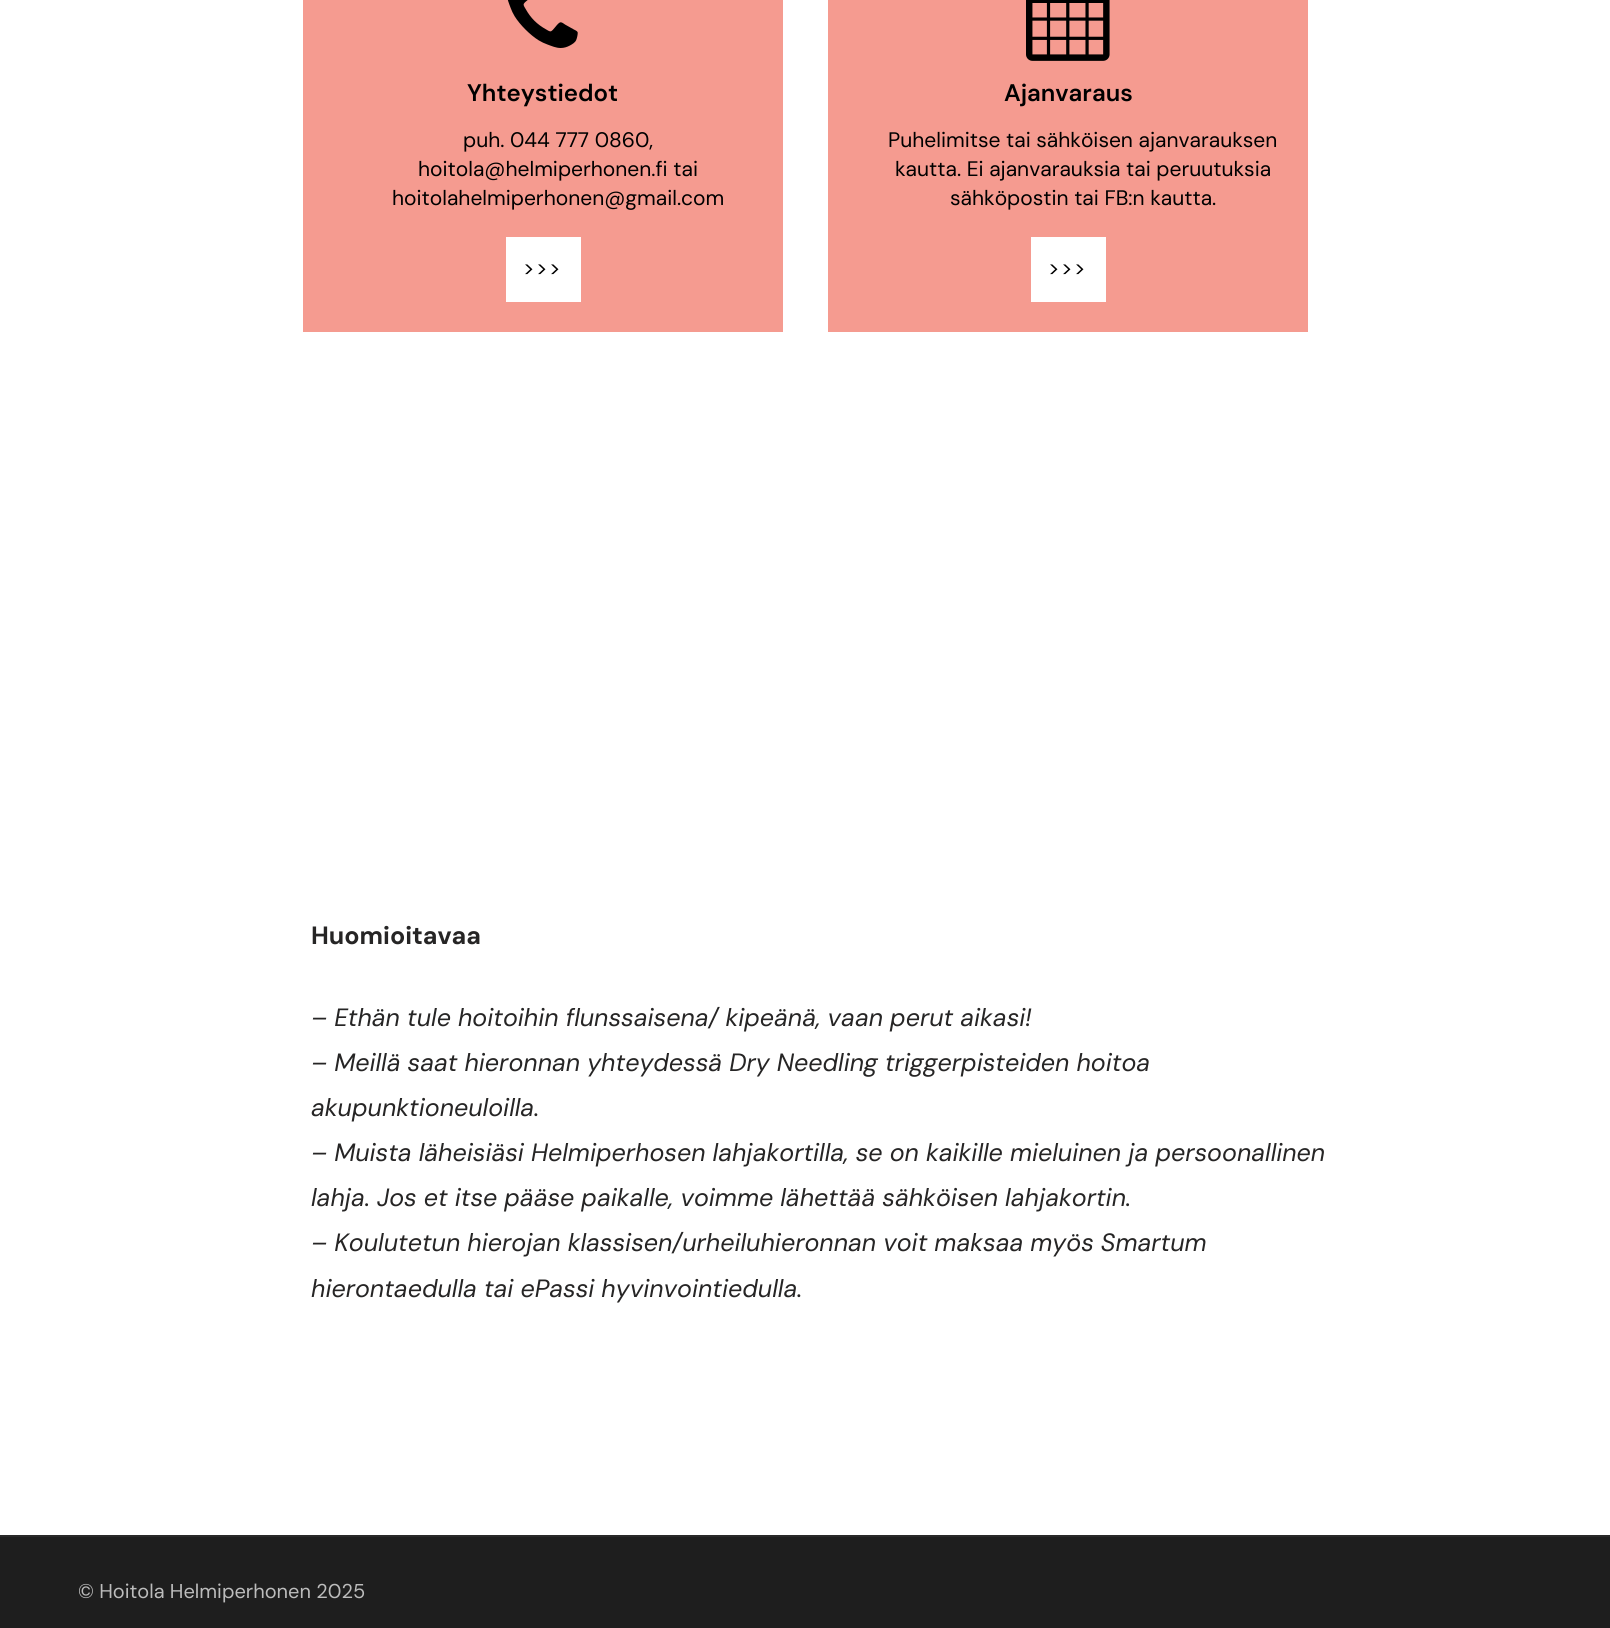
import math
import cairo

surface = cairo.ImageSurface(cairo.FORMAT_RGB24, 1610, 1628)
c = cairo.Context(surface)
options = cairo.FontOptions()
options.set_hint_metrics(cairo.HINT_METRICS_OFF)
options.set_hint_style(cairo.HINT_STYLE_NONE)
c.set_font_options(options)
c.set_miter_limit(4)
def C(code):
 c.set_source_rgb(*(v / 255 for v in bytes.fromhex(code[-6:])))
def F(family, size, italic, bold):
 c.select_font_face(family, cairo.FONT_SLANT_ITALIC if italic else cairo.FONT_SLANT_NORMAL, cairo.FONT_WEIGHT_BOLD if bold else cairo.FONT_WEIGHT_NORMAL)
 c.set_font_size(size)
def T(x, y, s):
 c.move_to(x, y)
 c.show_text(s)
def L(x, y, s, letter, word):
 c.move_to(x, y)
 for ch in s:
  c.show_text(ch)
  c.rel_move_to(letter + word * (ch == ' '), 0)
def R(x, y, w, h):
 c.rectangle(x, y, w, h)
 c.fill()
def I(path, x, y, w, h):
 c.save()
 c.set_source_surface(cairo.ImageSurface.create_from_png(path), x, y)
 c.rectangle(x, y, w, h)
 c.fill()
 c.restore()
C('ffffff')
c.paint()
C('f59b90')
R(303,0,480,332)
I('1.png',507,0,71,48)
F('DM Sans SemiBold',24,0,0)
C('000000')
T(467,101,'Yhteystiedot')
F('DM Sans',21,0,0)
T(463,147,'puh. 044 777 0860,')
T(418,176,'hoitola@helmiperhonen.fi tai')
T(392,205,'hoitolahelmiperhonen@gmail.com')
C('ffffff')
R(506,237,75,65)
C('000000')
L(523,275,'>>>',1.5,0)
C('f59b90')
R(828,0,480,332)
I('2.png',1026,0,84,61)
F('DM Sans SemiBold',24,0,0)
C('000000')
T(1004,101,'Ajanvaraus')
F('DM Sans',21,0,0)
T(888,147,'Puhelimitse tai sähköisen ajanvarauksen')
T(895,176,'kautta. Ei ajanvarauksia tai peruutuksia')
T(950,205,'sähköpostin tai FB:n kautta.')
C('ffffff')
R(1031,237,75,65)
C('000000')
L(1048,275,'>>>',1.5,0)
F('DM Sans',25,0,1)
C('262525')
T(311,944,'Huomioitavaa')
F('DM Sans',25,1,0)
T(311,1026,'– Ethän tule hoitoihin flunssaisena/ kipeänä, vaan perut aikasi!')
T(311,1071,'– Meillä saat hieronnan yhteydessä Dry Needling triggerpisteiden hoitoa')
T(311,1116,'akupunktioneuloilla.')
T(311,1161,'– Muista läheisiäsi Helmiperhosen lahjakortilla, se on kaikille mieluinen ja persoonallinen')
T(311,1206,'lahja. Jos et itse pääse paikalle, voimme lähettää sähköisen lahjakortin.')
T(311,1251,'– Koulutetun hierojan klassisen/urheiluhieronnan voit maksaa myös Smartum')
T(311,1297,'hierontaedulla tai ePassi hyvinvointiedulla.')
C('1e1e1e')
R(0,1537,1610,91)
C('292929')
R(0,1535,1610,2)
F('DM Sans',20,0,0)
C('bcbcbc')
T(78,1598,'© Hoitola Helmiperhonen 2025')
surface.write_to_png('o.png')
